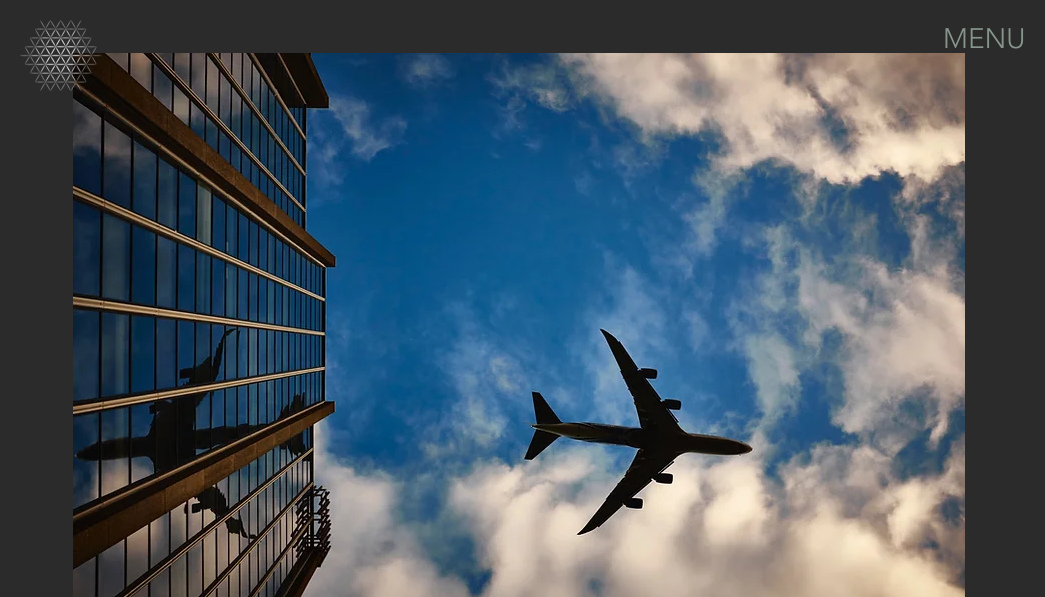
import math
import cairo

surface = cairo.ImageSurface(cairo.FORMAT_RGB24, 1045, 597)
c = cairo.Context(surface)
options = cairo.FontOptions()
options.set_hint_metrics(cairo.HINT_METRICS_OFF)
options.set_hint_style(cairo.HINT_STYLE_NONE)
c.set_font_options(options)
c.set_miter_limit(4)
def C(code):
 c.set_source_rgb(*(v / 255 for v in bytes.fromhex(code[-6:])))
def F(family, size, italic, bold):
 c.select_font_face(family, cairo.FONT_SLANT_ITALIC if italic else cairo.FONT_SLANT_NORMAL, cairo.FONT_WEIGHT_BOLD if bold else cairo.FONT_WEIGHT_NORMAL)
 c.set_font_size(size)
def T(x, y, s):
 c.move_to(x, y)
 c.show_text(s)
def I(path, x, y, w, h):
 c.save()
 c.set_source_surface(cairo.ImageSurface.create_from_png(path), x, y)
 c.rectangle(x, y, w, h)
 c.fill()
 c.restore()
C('2b2b2b')
c.paint()
I('2.png',73,53,892,544)
I('1.png',20,20,82,71)
F('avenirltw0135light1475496 Light',28,0,0)
C('86968d')
T(943,48,'MENU')
surface.write_to_png('o.png')
